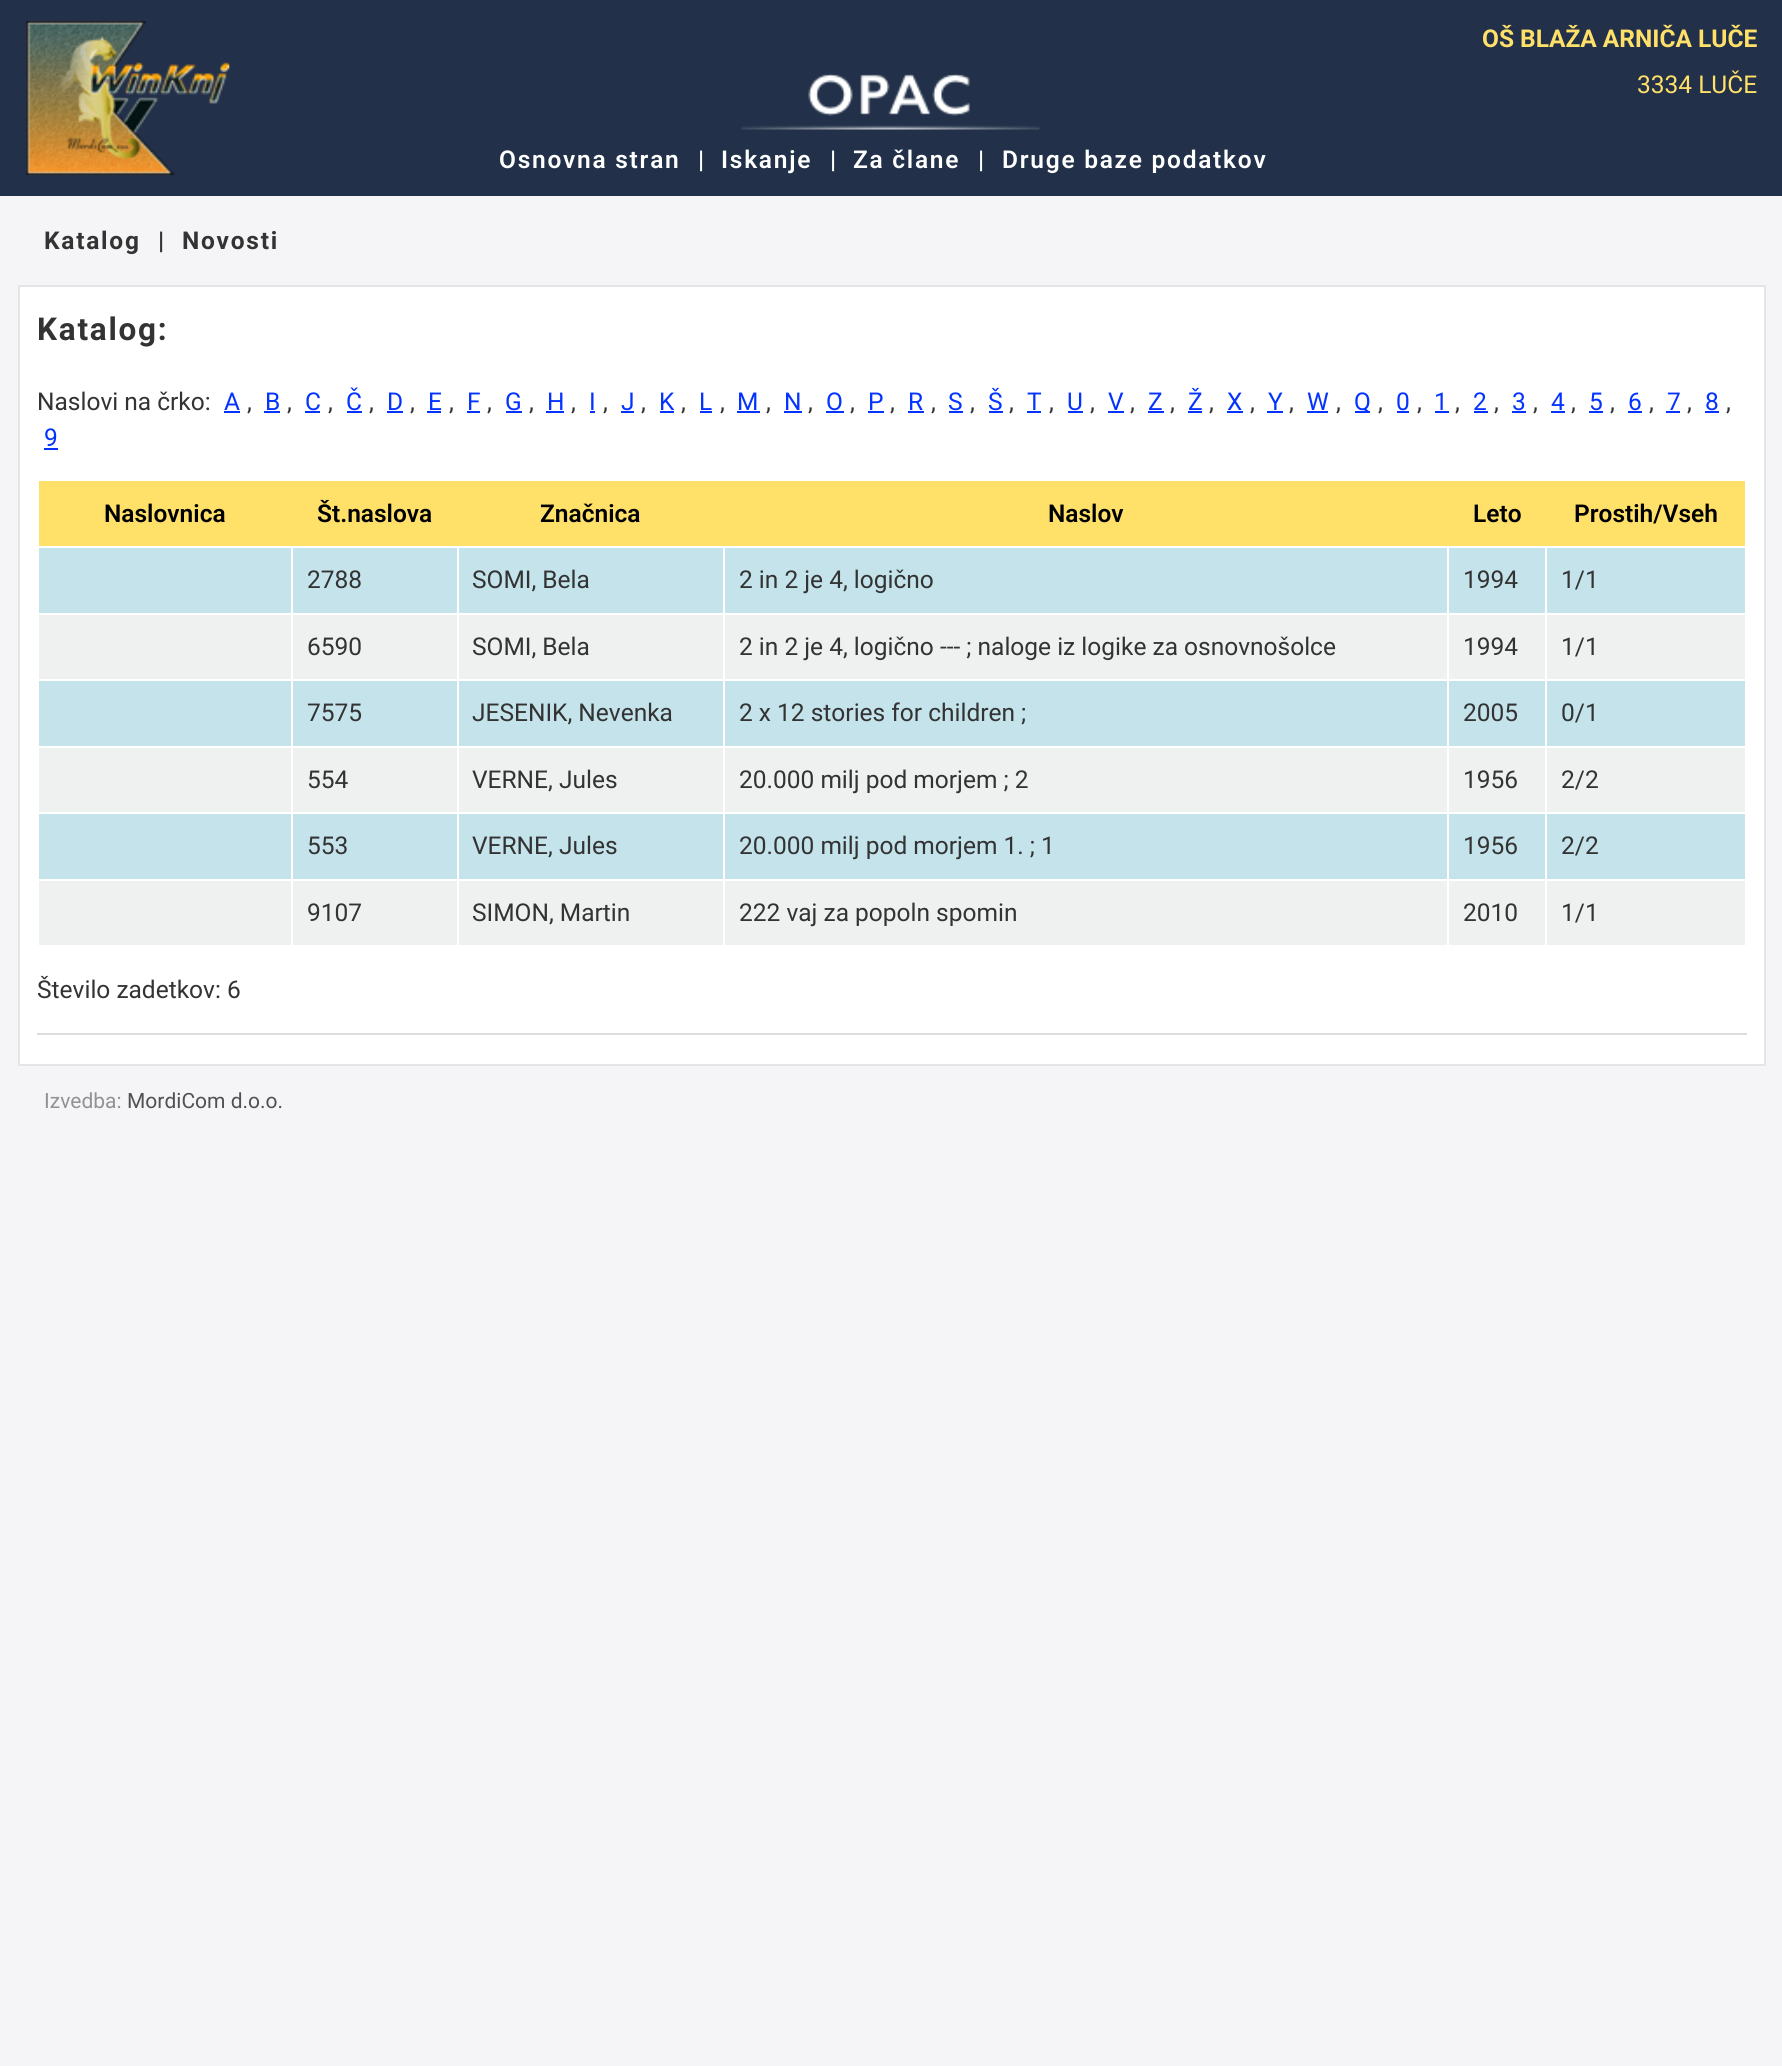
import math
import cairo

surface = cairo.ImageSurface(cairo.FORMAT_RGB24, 1782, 2066)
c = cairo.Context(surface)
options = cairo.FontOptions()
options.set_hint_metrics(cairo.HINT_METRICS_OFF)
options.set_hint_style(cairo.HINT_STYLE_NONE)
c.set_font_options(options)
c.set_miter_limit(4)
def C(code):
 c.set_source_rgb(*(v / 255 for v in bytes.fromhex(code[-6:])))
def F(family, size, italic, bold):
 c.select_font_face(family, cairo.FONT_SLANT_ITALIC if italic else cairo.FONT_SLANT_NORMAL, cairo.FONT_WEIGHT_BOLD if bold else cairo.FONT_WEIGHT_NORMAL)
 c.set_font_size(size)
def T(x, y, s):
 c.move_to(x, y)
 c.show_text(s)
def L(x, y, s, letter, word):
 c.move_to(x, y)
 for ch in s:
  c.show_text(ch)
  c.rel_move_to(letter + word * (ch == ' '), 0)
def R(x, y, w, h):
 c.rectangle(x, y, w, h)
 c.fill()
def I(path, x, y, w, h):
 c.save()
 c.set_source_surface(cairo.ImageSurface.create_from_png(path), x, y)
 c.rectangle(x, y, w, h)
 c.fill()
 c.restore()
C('f5f5f7')
c.paint()
C('223149')
R(0,0,1782,196)
I('1.png',740,73,300,57)
I('2.png',26,21,204,154)
F('Roboto',24.5,0,1)
C('ffe068')
T(1482,47,'OŠ BLAŽA ARNIČA LUČE')
F('Roboto',24.5,0,0)
T(1637,93,'3334 LUČE')
F('Roboto SemiBold',24.5,0,0)
C('ffffff')
L(499,168,'Osnovna stran',1.75,0)
T(698,168,'|')
L(721,168,'Iskanje',1.75,0)
T(830,168,'|')
L(853,168,'Za člane',1.75,0)
T(978,168,'|')
L(1002,168,'Druge baze podatkov',1.75,0)
F('Roboto',24.5,0,1)
C('333333')
L(44,249,'Katalog',1.75,0)
T(158,249,'|')
L(182,249,'Novosti',1.75,0)
C('ffffff')
c.rectangle(19,286,1746,779)
c.fill_preserve()
C('e5e5e5')
c.stroke()
F('Roboto',31.5,0,1)
C('333333')
L(37,340,'Katalog:',1.75,0)
F('Roboto',24.5,0,0)
T(37,410,'Naslovi na črko:')
C('0433ff')
T(224,410,'A')
R(224,411,16,2)
C('333333')
T(247,410,',')
C('0433ff')
T(265,410,'B')
R(264,411,16,2)
C('333333')
T(287,410,',')
C('0433ff')
T(305,410,'C')
R(305,411,15,2)
C('333333')
T(328,410,',')
C('0433ff')
T(346,410,'Č')
R(347,411,15,2)
C('333333')
T(369,410,',')
C('0433ff')
T(387,410,'D')
R(387,411,16,2)
C('333333')
T(410,410,',')
C('0433ff')
T(428,410,'E')
R(427,411,14,2)
C('333333')
T(449,410,',')
C('0433ff')
T(467,410,'F')
R(467,411,13,2)
C('333333')
T(487,410,',')
C('0433ff')
T(505,410,'G')
R(506,411,16,2)
C('333333')
T(529,410,',')
C('0433ff')
T(547,410,'H')
R(546,411,18,2)
C('333333')
T(571,410,',')
C('0433ff')
T(589,410,'I')
R(590,411,5,2)
C('333333')
T(603,410,',')
C('0433ff')
T(621,410,'J')
R(621,411,13,2)
C('333333')
T(641,410,',')
C('0433ff')
T(659,410,'K')
R(660,411,14,2)
C('333333')
T(681,410,',')
C('0433ff')
T(699,410,'L')
R(700,411,12,2)
C('333333')
T(720,410,',')
C('0433ff')
T(737,410,'M')
R(737,411,23,2)
C('333333')
T(766,410,',')
C('0433ff')
T(784,410,'N')
R(784,411,18,2)
C('333333')
T(808,410,',')
C('0433ff')
T(826,410,'O')
R(826,411,18,2)
C('333333')
T(850,410,',')
C('0433ff')
T(868,410,'P')
R(868,411,16,2)
C('333333')
T(890,410,',')
C('0433ff')
T(908,410,'R')
R(908,411,16,2)
C('333333')
T(931,410,',')
C('0433ff')
T(948,410,'S')
R(949,411,14,2)
C('333333')
T(970,410,',')
C('0433ff')
T(988,410,'Š')
R(989,411,14,2)
C('333333')
T(1009,410,',')
C('0433ff')
T(1027,410,'T')
R(1027,411,14,2)
C('333333')
T(1049,410,',')
C('0433ff')
T(1067,410,'U')
R(1068,411,15,2)
C('333333')
T(1090,410,',')
C('0433ff')
T(1108,410,'V')
R(1108,411,16,2)
C('333333')
T(1130,410,',')
C('0433ff')
T(1148,410,'Z')
R(1148,411,16,2)
C('333333')
T(1170,410,',')
C('0433ff')
T(1188,410,'Ž')
R(1188,411,14,2)
C('333333')
T(1209,410,',')
C('0433ff')
T(1227,410,'X')
R(1227,411,16,2)
C('333333')
T(1250,410,',')
C('0433ff')
T(1268,410,'Y')
R(1267,411,16,2)
C('333333')
T(1289,410,',')
C('0433ff')
T(1307,410,'W')
R(1307,411,21,2)
C('333333')
T(1336,410,',')
C('0433ff')
R(1355,411,15,2)
T(1354,410,'Q')
C('333333')
T(1378,410,',')
C('0433ff')
T(1396,410,'0')
R(1397,411,12,2)
C('333333')
T(1417,410,',')
C('0433ff')
T(1434,410,'1')
R(1435,411,14,2)
C('333333')
T(1455,410,',')
C('0433ff')
T(1473,410,'2')
R(1474,411,14,2)
C('333333')
T(1494,410,',')
C('0433ff')
T(1512,410,'3')
R(1512,411,14,2)
C('333333')
T(1533,410,',')
C('0433ff')
T(1551,410,'4')
R(1551,411,14,2)
C('333333')
T(1571,410,',')
C('0433ff')
T(1589,410,'5')
R(1589,411,14,2)
C('333333')
T(1610,410,',')
C('0433ff')
T(1628,410,'6')
R(1628,411,14,2)
C('333333')
T(1649,410,',')
C('0433ff')
T(1667,410,'7')
R(1666,411,14,2)
C('333333')
T(1687,410,',')
C('0433ff')
T(1705,410,'8')
R(1705,411,14,2)
C('333333')
T(1726,410,',')
C('0433ff')
T(44,446,'9')
R(44,448,14,2)
C('ffe068')
R(39,481,1706,65)
F('Roboto SemiBold',24.5,0,0)
C('000000')
T(104,522,'Naslovnica')
T(317,522,'Št.naslova')
T(540,522,'Značnica')
T(1048,522,'Naslov')
T(1473,522,'Leto')
T(1574,522,'Prostih/Vseh')
C('c4e3eb')
R(39,548,1706,65)
F('Roboto',24.5,0,0)
C('333333')
T(307,588,'2788')
T(472,588,'SOMI, Bela')
T(739,588,'2 in 2 je 4, logično')
T(1463,588,'1994')
T(1561,588,'1/1')
C('eff1f1')
R(39,615,1706,64)
C('333333')
T(307,655,'6590')
T(472,655,'SOMI, Bela')
T(739,655,'2 in 2 je 4, logično --- ; naloge iz logike za osnovnošolce')
T(1463,655,'1994')
T(1561,655,'1/1')
C('c4e3eb')
R(39,681,1706,65)
C('333333')
T(307,721,'7575')
T(472,721,'JESENIK, Nevenka')
T(739,721,'2 x 12 stories for children ;')
T(1463,721,'2005')
T(1561,721,'0/1')
C('eff1f1')
R(39,748,1706,64)
C('333333')
T(307,788,'554')
T(472,788,'VERNE, Jules')
T(739,788,'20.000 milj pod morjem ; 2')
T(1463,788,'1956')
T(1561,788,'2/2')
C('c4e3eb')
R(39,814,1706,65)
C('333333')
T(307,854,'553')
T(472,854,'VERNE, Jules')
T(739,854,'20.000 milj pod morjem 1. ; 1')
T(1463,854,'1956')
T(1561,854,'2/2')
C('eff1f1')
R(39,881,1706,64)
C('ffffff')
R(291,546,2,401)
C('333333')
T(307,921,'9107')
C('ffffff')
R(457,546,2,401)
C('333333')
T(472,921,'SIMON, Martin')
C('ffffff')
R(723,546,2,401)
C('333333')
T(739,921,'222 vaj za popoln spomin')
C('ffffff')
R(1447,546,2,401)
C('333333')
T(1463,921,'2010')
C('ffffff')
R(1545,546,2,401)
C('333333')
T(1561,921,'1/1')
T(37,998,'Število zadetkov: 6')
C('dddddd')
R(37,1033,1710,2)
F('Roboto',21,0,0)
C('929292')
T(44,1108,'Izvedba:')
C('515154')
T(127,1108,'MordiCom d.o.o.')
surface.write_to_png('o.png')
